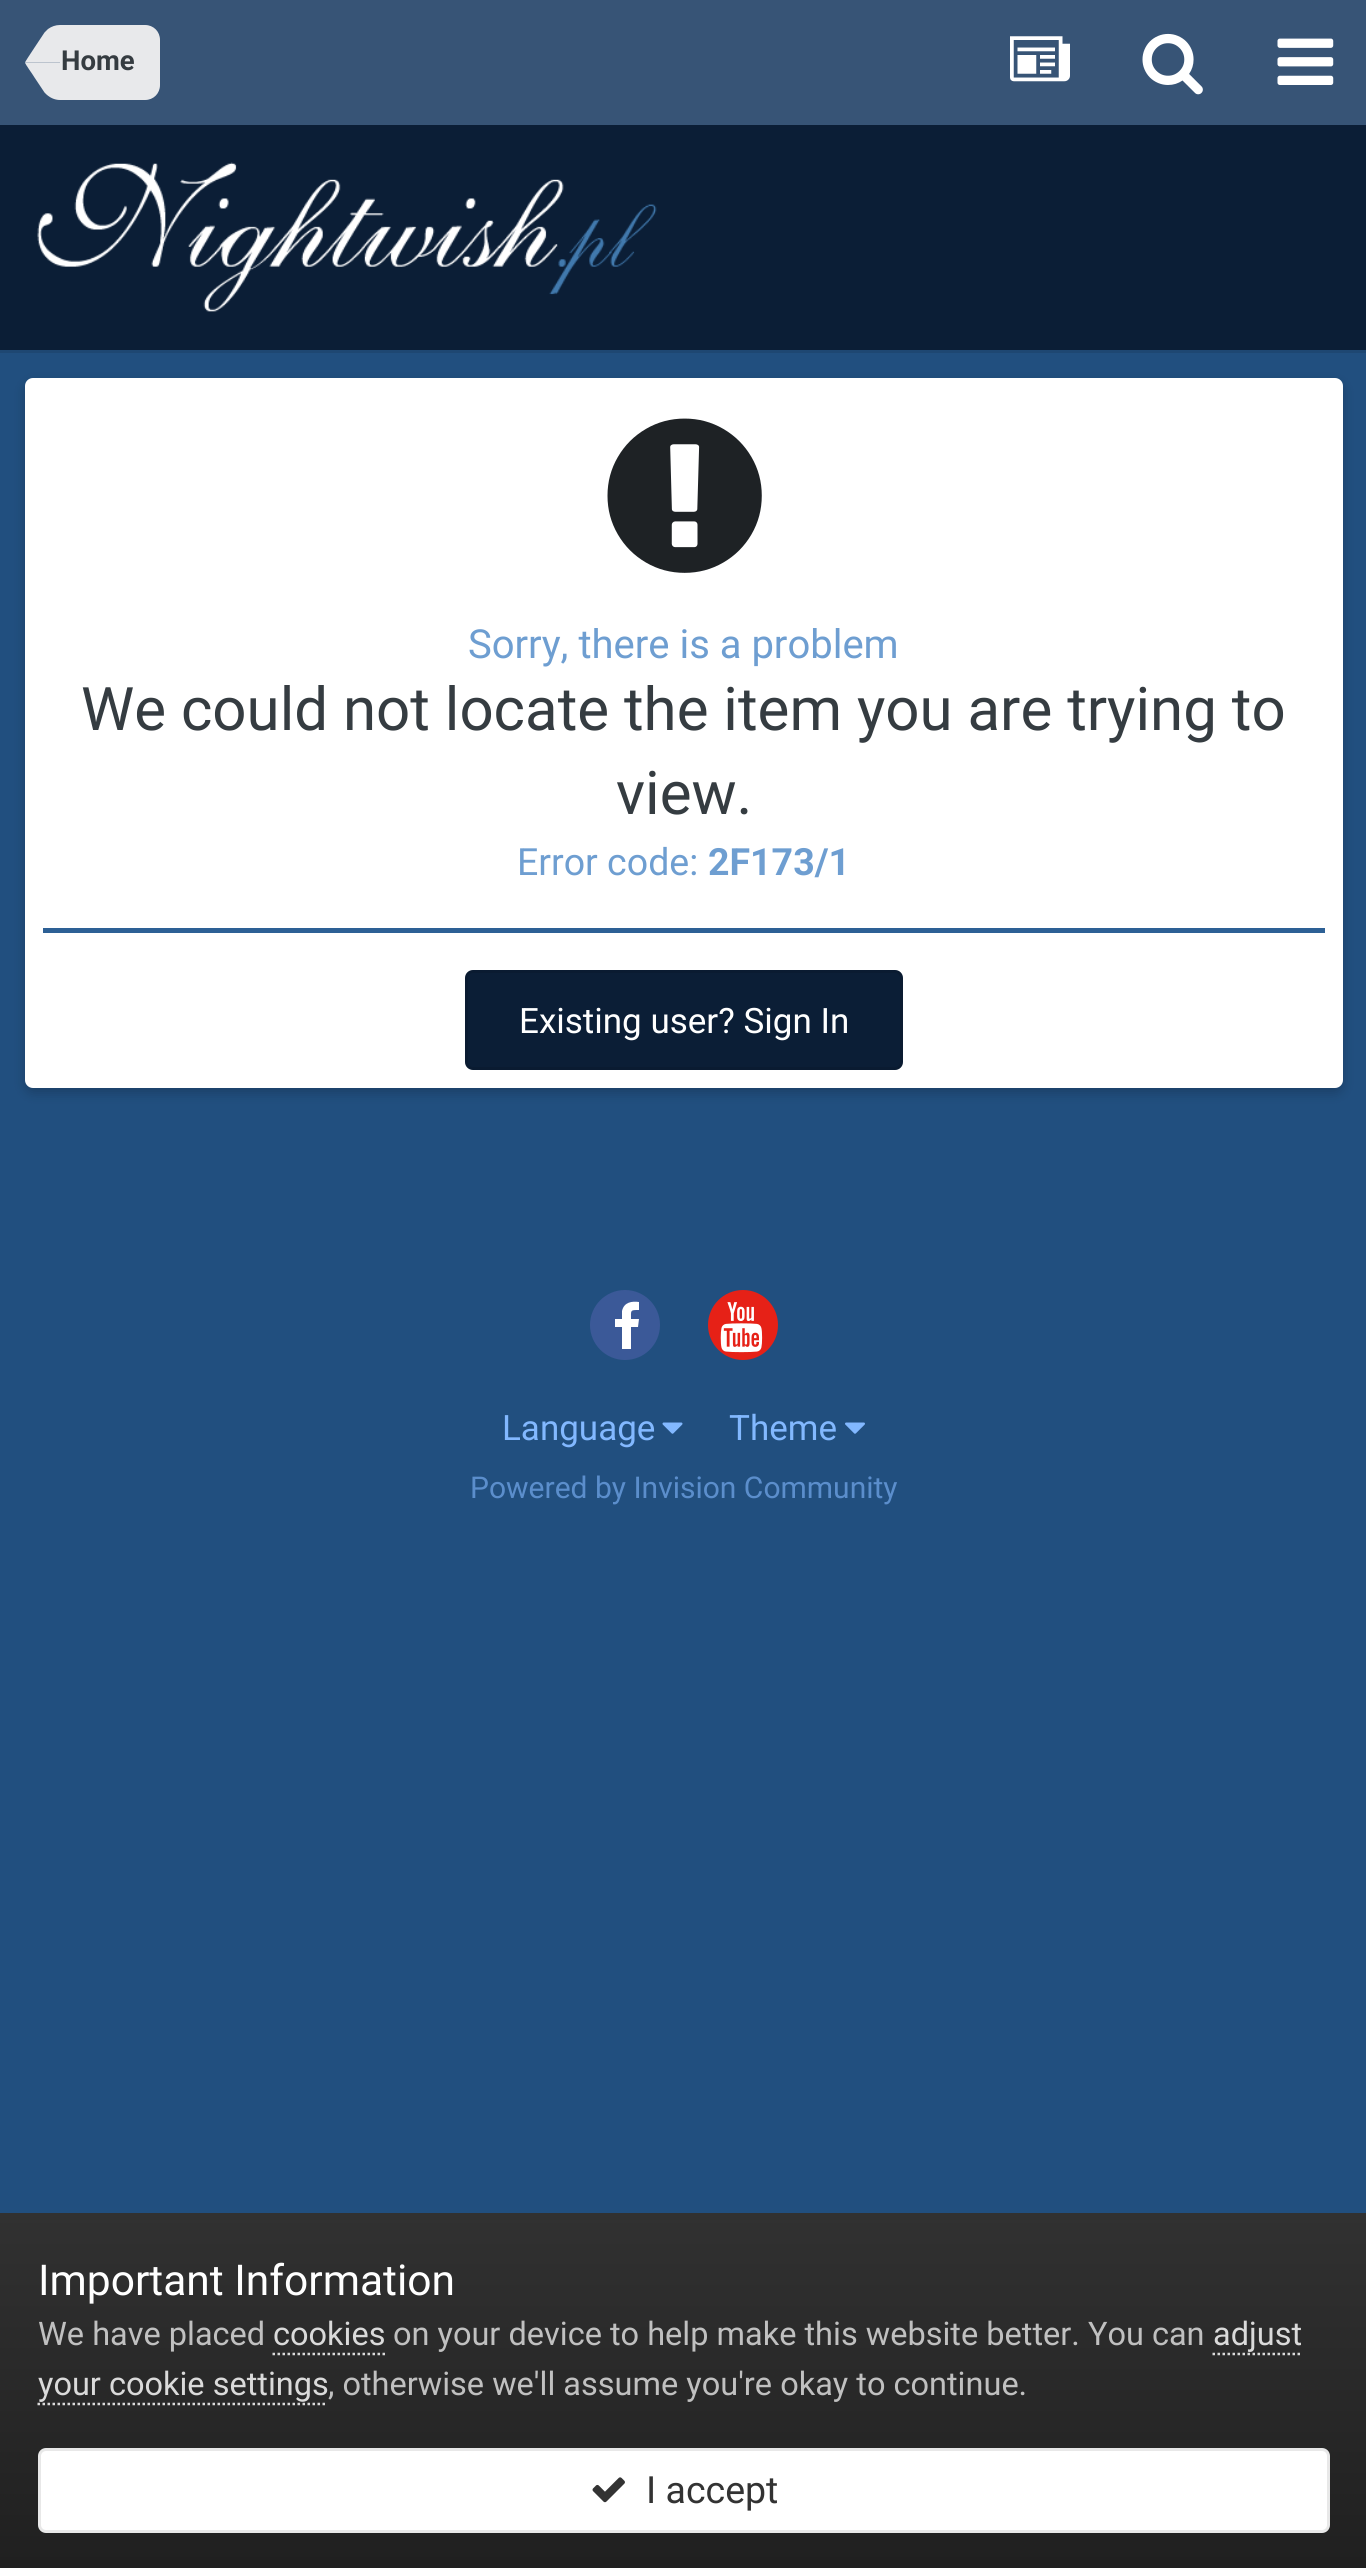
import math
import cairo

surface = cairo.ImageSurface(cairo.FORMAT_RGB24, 1366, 2568)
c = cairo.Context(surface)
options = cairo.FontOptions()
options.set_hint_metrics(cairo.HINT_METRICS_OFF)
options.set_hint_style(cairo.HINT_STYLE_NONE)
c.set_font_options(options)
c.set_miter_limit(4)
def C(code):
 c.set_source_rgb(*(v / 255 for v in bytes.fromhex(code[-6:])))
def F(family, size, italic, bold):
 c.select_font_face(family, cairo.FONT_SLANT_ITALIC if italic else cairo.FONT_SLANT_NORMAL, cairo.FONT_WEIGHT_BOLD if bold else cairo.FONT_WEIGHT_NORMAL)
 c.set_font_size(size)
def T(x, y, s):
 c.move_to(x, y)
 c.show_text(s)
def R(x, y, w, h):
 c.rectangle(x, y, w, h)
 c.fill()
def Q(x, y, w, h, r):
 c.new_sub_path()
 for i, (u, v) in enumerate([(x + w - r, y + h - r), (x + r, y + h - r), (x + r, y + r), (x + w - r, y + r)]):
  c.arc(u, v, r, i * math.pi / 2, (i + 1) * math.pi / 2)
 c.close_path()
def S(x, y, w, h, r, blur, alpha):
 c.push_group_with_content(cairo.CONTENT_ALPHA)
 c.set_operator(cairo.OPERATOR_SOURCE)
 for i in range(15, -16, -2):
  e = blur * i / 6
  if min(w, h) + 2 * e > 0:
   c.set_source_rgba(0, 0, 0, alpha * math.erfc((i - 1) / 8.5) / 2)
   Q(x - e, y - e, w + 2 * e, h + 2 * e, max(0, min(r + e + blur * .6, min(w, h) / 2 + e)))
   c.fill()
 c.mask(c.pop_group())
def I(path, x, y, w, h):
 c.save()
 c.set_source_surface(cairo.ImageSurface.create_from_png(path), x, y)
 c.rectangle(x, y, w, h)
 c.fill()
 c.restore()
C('214f7f')
c.paint()
C('1e4772')
R(0,350,1366,3)
C('375476')
R(0,0,1366,125)
C('e8e9eb')
c.new_path()
c.move_to(60,25)
c.line_to(145,25)
c.curve_to(153.5,25,160,31.5,160,40)
c.line_to(160,85)
c.curve_to(160,93.5,153.5,100,145,100)
c.line_to(60,100)
c.close_path()
c.fill()
c.new_path()
c.move_to(34.5,77.5)
c.curve_to(33.5,75.5,25,64,25,62.5)
c.line_to(60,62.5)
c.line_to(60,100)
c.curve_to(54.5,100,49,97.5,44.5,92.5)
c.close_path()
c.fill()
c.new_path()
c.move_to(60,25)
c.line_to(60,62.5)
c.line_to(25,62.5)
c.curve_to(25,61.5,43,35,44.5,32.5)
c.line_to(48,29)
c.curve_to(51.5,26.5,55.5,25,60,25)
c.close_path()
c.fill()
F('Roboto',27.5,0,1)
C('353c41')
T(61,70,'Home')
I('1.png',1010,36,60,46)
I('2.png',1142,33,61,62)
I('3.png',1277,38,57,47)
C('0b1e36')
R(0,125,1366,225)
I('4.png',37,162,620,150)
C('000000')
S(25,383,1318,710,8,6,.2)
C('ffffff')
Q(25,378,1318,710,8)
c.fill()
I('5.png',607,418,155,155)
F('Roboto',40,0,0)
C('6e9ed1')
T(468,658,'Sorry, there is a problem')
F('Roboto',60,0,0)
C('353c41')
T(81,730,'We could not locate the item you are trying to')
T(616,814,'view.')
F('Roboto',37.5,0,0)
C('6e9ed1')
T(517,875,'Error code:')
F('Roboto',37.5,0,1)
T(708,875,'2F173/1')
C('2d6095')
R(43,928,1282,5)
C('0b1e36')
Q(465,970,438,100,8)
c.fill()
Q(466.5,971.5,435,97,6.5)
c.set_source_rgba(0,0,0,0.1)
c.set_line_width(3)
c.stroke()
F('Roboto',35,0,0)
C('ffffff')
T(519,1033,'Existing user? Sign In')
C('3b5998')
c.new_path()
c.arc(625,1325,35,0,2 * math.pi)
c.fill()
C('ffffff')
c.new_path()
c.move_to(639,1302)
c.line_to(639,1310)
c.curve_to(630,1310,631,1310,631,1319)
c.line_to(639,1319)
c.line_to(638,1327)
c.line_to(631,1327)
c.line_to(631,1349)
c.line_to(622,1349)
c.line_to(622,1327)
c.line_to(615,1327)
c.line_to(615,1319)
c.line_to(622,1319)
c.line_to(622,1311)
c.curve_to(624,1302,632,1301,639,1302)
c.close_path()
c.fill()
C('e62117')
c.arc(743,1325,35,0,2 * math.pi)
c.fill()
I('6.png',720,1302,43,51)
C('82b8ff')
T(502,1440,'Language')
I('7.png',662,1422,21,12)
T(729,1440,'Theme')
I('8.png',845,1422,20,12)
F('Roboto',30,0,0)
C('5b8ecc')
T(470,1498,'Powered by Invision Community')
gradient = cairo.LinearGradient(684,2213,684,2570)
gradient.add_color_stop_rgba(0,0.192,0.192,0.192,1)
gradient.add_color_stop_rgba(1,0.125,0.125,0.125,1)
c.set_source(gradient)
R(0,2213,1366,355)
F('Roboto',42.5,0,0)
C('ffffff')
T(38,2295,'Important Information')
F('Roboto',32.5,0,0)
C('c0c0c0')
T(38,2345,'We have placed')
C('dadada')
T(273,2345,'cookies')
c.new_path()
c.move_to(272.5,2354)
c.line_to(385,2354)
c.set_line_width(2.5)
c.set_dash([2.5,2.5])
c.stroke()
C('c0c0c0')
T(393,2345,'on your device to help make this website better. You can')
C('dadada')
T(1213,2345,'adjust')
c.new_path()
c.move_to(1212.5,2354)
c.line_to(1302.5,2354)
c.stroke()
T(38,2395,'your cookie settings')
c.new_path()
c.move_to(37.5,2404)
c.line_to(327.5,2404)
c.stroke()
C('c0c0c0')
T(328,2395,', otherwise we\'ll assume you\'re okay to continue.')
C('ffffff')
Q(39.5,2449.5,1289,82,6.5)
c.fill_preserve()
C('e8e8e8')
c.set_line_width(3)
c.set_dash([])
c.stroke()
I('9.png',592,2477,33,26)
F('Roboto',37.5,0,0)
C('333333')
T(646,2503,'I accept')
surface.write_to_png('o.png')
